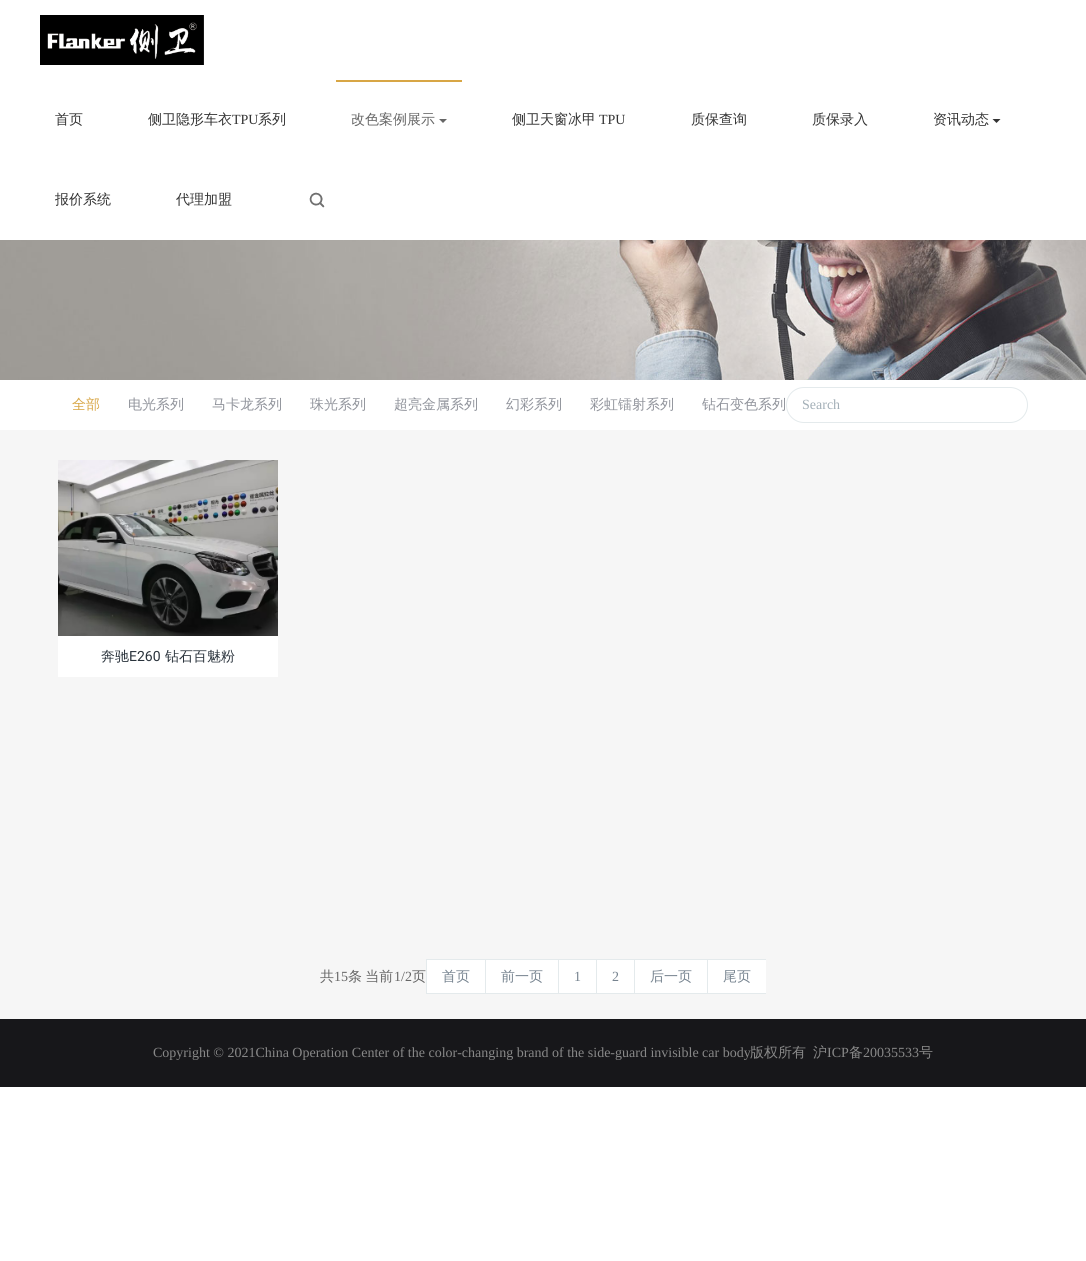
import math
import cairo

surface = cairo.ImageSurface(cairo.FORMAT_RGB24, 1086, 1261)
c = cairo.Context(surface)
options = cairo.FontOptions()
options.set_hint_metrics(cairo.HINT_METRICS_OFF)
options.set_hint_style(cairo.HINT_STYLE_NONE)
c.set_font_options(options)
c.set_miter_limit(4)
def C(code):
 c.set_source_rgb(*(v / 255 for v in bytes.fromhex(code[-6:])))
def F(family, size, italic, bold):
 c.select_font_face(family, cairo.FONT_SLANT_ITALIC if italic else cairo.FONT_SLANT_NORMAL, cairo.FONT_WEIGHT_BOLD if bold else cairo.FONT_WEIGHT_NORMAL)
 c.set_font_size(size)
def T(x, y, s):
 c.move_to(x, y)
 c.show_text(s)
def L(x, y, s, letter, word):
 c.move_to(x, y)
 for ch in s:
  c.show_text(ch)
  c.rel_move_to(letter + word * (ch == ' '), 0)
def R(x, y, w, h):
 c.rectangle(x, y, w, h)
 c.fill()
def Q(x, y, w, h, r):
 c.new_sub_path()
 for i, (u, v) in enumerate([(x + w - r, y + h - r), (x + r, y + h - r), (x + r, y + r), (x + w - r, y + r)]):
  c.arc(u, v, r, i * math.pi / 2, (i + 1) * math.pi / 2)
 c.close_path()
def I(path, x, y, w, h):
 c.save()
 c.set_source_surface(cairo.ImageSurface.create_from_png(path), x, y)
 c.rectangle(x, y, w, h)
 c.fill()
 c.restore()
C('ffffff')
c.paint()
I('1.png',40,15,164,50)
F('WenQuanYi Zen Hei Medium',14,0,0)
C('333333')
T(55,124,'首页')
T(148,124,'侧卫隐形车衣')
F('Liberation Serif',14,0,0)
T(232,124,'TPU')
F('WenQuanYi Zen Hei Medium',14,0,0)
T(258,124,'系列')
C('d8a645')
R(336,80,126,2)
C('666666')
T(351,124,'改色案例展示')
c.new_path()
c.move_to(439,119)
c.line_to(447,119)
c.line_to(443,123)
c.close_path()
c.fill()
C('333333')
T(512,124,'侧卫天窗冰甲')
F('Liberation Serif',14,0,0)
T(599,124,'TPU')
F('WenQuanYi Zen Hei Medium',14,0,0)
T(691,124,'质保查询')
T(812,124,'质保录入')
T(933,124,'资讯动态')
c.new_path()
c.move_to(992.5,119)
c.line_to(1000.5,119)
c.line_to(996.5,123)
c.close_path()
c.fill()
T(55,204,'报价系统')
T(176,204,'代理加盟')
I('2.png',309,192,16,16)
I('3.png',0,240,1086,140)
C('d8a645')
T(72,409,'全部')
C('90939b')
T(128,409,'电光系列')
T(212,409,'马卡龙系列')
T(310,409,'珠光系列')
T(394,409,'超亮金属系列')
T(506,409,'幻彩系列')
T(590,409,'彩虹镭射系列')
T(702,409,'钻石变色系列')
Q(786.5,387.5,241,35,17.5)
C('e4eaec')
c.set_line_width(1)
c.stroke()
F('Liberation Serif',14,0,0)
C('a3afb7')
T(802,409,'Search')
C('f6f6f6')
R(0,430,1086,589)
C('ffffff')
R(58,636,220,41)
I('4.png',58,460,220,176)
F('WenQuanYi Zen Hei Medium',14,0,0)
C('2a333c')
T(101,661,'奔驰')
F('Roboto',14,0,0)
T(129,661,'E260')
F('WenQuanYi Zen Hei Medium',14,0,0)
T(165,661,'钻石百魅粉')
C('666666')
T(320,981,'共')
F('Liberation Serif',14,0,0)
T(334,981,'15')
F('WenQuanYi Zen Hei Medium',14,0,0)
L(348,981,'条 当前',0,-1)
F('Liberation Serif',14,0,0)
T(394,981,'1/2')
F('WenQuanYi Zen Hei Medium',14,0,0)
T(412,981,'页')
C('ffffff')
R(427,960,58,33)
C('76838f')
T(442,981,'首页')
C('e4eaec')
R(426,959,340,1)
R(426,993,340,1)
R(426,959,1,35)
C('ffffff')
R(486,960,72,33)
C('76838f')
T(501,981,'前一页')
C('e4eaec')
R(485,959,1,35)
C('ffffff')
R(559,960,37,33)
F('Liberation Serif',14,0,0)
C('76838f')
T(574,981,'1')
C('e4eaec')
R(558,959,1,35)
C('ffffff')
R(597,960,37,33)
C('76838f')
T(612,981,'2')
C('e4eaec')
R(596,959,1,35)
C('ffffff')
R(635,960,72,33)
F('WenQuanYi Zen Hei Medium',14,0,0)
C('76838f')
T(650,981,'后一页')
C('e4eaec')
R(634,959,1,35)
C('ffffff')
R(708,960,58,33)
C('76838f')
T(723,981,'尾页')
C('e4eaec')
R(707,959,1,35)
C('17171a')
R(0,1019,1086,68)
F('Liberation Serif',14,0,0)
C('888888')
T(153,1057,'Copyright © 2021China Operation Center of the color-changing brand of the side-guard invisible car body')
F('WenQuanYi Zen Hei Medium',14,0,0)
T(750,1057,'版权所有')
T(813,1057,'沪')
F('Liberation Serif',14,0,0)
T(827,1057,'ICP')
F('WenQuanYi Zen Hei Medium',14,0,0)
T(849,1057,'备')
F('Liberation Serif',14,0,0)
T(863,1057,'20035533')
F('WenQuanYi Zen Hei Medium',14,0,0)
T(919,1057,'号')
surface.write_to_png('o.png')
